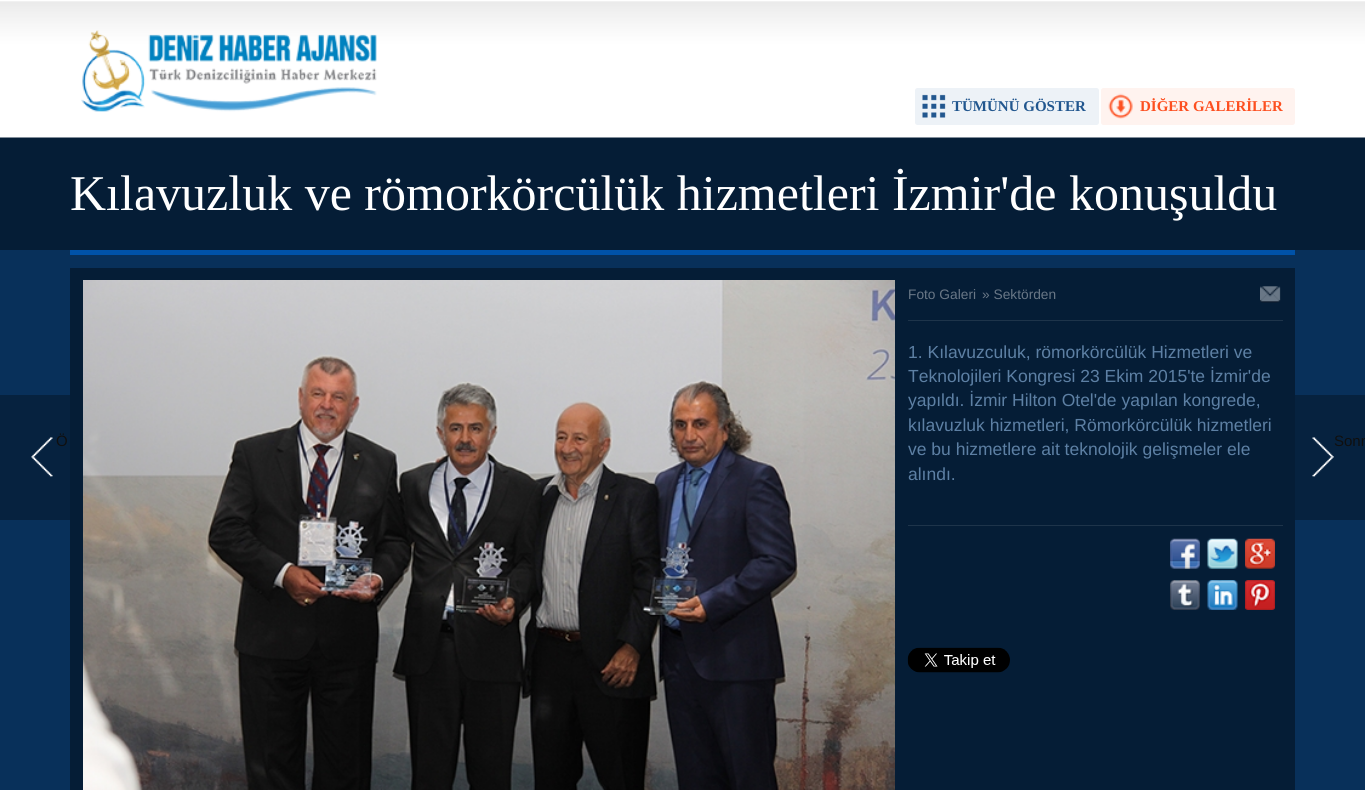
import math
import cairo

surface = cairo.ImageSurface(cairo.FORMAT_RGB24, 1365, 790)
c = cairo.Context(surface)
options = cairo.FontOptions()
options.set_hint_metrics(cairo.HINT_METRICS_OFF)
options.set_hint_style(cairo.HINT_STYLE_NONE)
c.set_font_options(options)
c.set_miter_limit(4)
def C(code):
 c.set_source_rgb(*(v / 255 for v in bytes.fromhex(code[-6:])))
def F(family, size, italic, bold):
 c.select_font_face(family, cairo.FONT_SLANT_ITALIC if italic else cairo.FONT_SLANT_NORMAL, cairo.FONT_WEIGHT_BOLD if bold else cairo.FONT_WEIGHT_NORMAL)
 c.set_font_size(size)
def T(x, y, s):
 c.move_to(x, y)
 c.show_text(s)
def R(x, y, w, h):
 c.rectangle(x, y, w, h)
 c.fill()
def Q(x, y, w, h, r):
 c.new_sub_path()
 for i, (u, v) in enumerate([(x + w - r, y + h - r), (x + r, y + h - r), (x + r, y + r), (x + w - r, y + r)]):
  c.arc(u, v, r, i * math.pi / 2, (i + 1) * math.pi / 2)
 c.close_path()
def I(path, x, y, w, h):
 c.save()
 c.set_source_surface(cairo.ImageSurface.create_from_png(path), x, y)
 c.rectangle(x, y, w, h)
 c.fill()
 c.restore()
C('08305a')
c.paint()
I('1.png',0,0,1365,250)
C('06223f')
R(0,395,70,125)
I('2.png',31,437,22,40)
F('Liberation Sans',15,0,0)
C('0f0f0f')
T(56,446,'Ö')
I('3.png',81,30,296,82)
C('edf2f7')
Q(915,88,184,37,2.5)
c.fill()
I('4.png',922,94,24,24)
F('Liberation Serif',15,0,1)
C('21568e')
T(952,111,'TÜMÜNÜ GÖSTER')
C('fff3ef')
Q(1101,88,194,37,2.5)
c.fill()
I('5.png',1108,93,25,26)
C('fd4f20')
T(1140,111,'DİĞER GALERİLER')
C('0052a8')
R(70,250,1225,5)
F('Liberation Serif',50,0,0)
C('ffffff')
T(70,210,'Kılavuzluk ve römorkörcülük hizmetleri İzmir\'de konuşuldu')
C('051d36')
R(70,268,1225,522)
I('6.png',83,280,812,510)
F('Liberation Sans',13.75,0,0)
C('697786')
T(908,299,'Foto Galeri')
T(982,299,'» Sektörden')
I('7.png',1260,286,21,17)
C('1e344a')
R(908,320,375,1)
R(908,525,375,1)
F('Liberation Sans',17.5,0,0)
C('5d80a4')
T(908,358,'1. Kılavuzculuk, römorkörcülük Hizmetleri ve')
T(908,382,'Teknolojileri Kongresi 23 Ekim 2015\'te İzmir\'de')
T(908,406,'yapıldı. İzmir Hilton Otel\'de yapılan kongrede,')
T(908,431,'kılavuzluk hizmetleri, Römorkörcülük hizmetleri')
T(908,455,'ve bu hizmetlere ait teknolojik gelişmeler ele')
T(908,480,'alındı.')
I('8.png',1170,538,30,31)
I('9.png',1207,538,31,31)
I('10.png',1245,538,30,31)
I('11.png',1170,580,30,30)
I('12.png',1207,580,31,30)
I('13.png',1245,580,30,30)
I('14.png',907,647,103,26)
C('06223f')
R(1295,395,70,125)
I('15.png',1312,437,22,40)
F('Liberation Sans',15,0,0)
C('0f0f0f')
T(1334,446,'Sonr')
surface.write_to_png('o.png')
